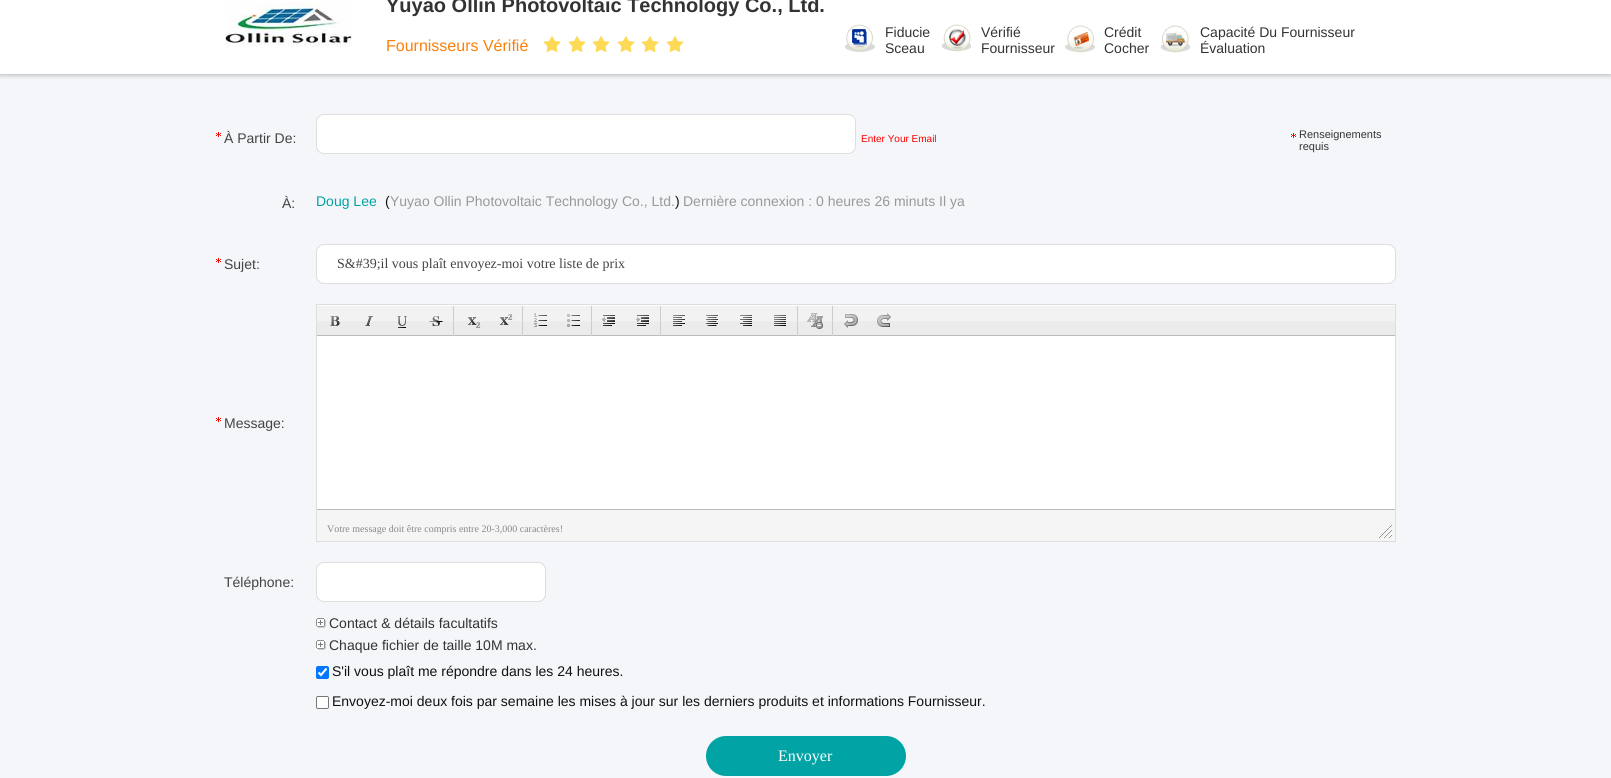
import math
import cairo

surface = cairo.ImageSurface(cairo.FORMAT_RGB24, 1611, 778)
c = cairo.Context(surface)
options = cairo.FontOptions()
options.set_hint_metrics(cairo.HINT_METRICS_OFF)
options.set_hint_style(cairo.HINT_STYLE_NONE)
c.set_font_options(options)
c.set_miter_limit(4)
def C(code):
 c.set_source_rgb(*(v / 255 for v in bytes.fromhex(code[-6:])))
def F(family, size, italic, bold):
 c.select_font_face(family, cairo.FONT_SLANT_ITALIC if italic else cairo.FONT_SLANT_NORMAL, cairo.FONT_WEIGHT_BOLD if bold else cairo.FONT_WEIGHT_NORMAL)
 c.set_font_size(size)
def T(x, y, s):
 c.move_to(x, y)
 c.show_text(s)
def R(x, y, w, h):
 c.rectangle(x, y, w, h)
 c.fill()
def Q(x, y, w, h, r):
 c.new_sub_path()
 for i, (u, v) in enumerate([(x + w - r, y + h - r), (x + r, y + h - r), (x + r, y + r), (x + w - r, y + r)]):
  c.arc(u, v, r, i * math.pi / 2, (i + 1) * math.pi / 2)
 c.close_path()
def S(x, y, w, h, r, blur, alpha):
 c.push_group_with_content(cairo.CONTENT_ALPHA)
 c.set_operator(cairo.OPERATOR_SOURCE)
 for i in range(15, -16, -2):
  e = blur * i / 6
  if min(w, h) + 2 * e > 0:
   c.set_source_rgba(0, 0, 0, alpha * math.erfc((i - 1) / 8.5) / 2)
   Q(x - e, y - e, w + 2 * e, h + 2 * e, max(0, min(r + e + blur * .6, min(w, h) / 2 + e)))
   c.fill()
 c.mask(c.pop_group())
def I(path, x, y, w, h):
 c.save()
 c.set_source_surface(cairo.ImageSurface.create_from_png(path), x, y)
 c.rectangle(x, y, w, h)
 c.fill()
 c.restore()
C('f4f6f9')
c.paint()
C('000000')
S(0,-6,1611,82,0,2,.2)
C('ffffff')
R(0,0,1611,74)
I('1.png',225,2,127,45)
F('Liberation Sans',20,0,1)
C('333333')
T(386,12,'Yuyao Ollin Photovoltaic Technology Co., Ltd.')
F('Liberation Sans',16,0,0)
C('fb8008')
T(386,51,'Fournisseurs Vérifié')
I('2.png',543,36,18,17)
I('3.png',568,36,18,17)
I('3.png',592,36,18,17)
I('3.png',617,36,18,17)
I('3.png',641,36,18,17)
I('3.png',666,36,18,17)
I('4.png',845,24,30,28)
F('Liberation Sans',14,0,0)
C('333333')
T(885,37,'Fiducie')
T(885,53,'Sceau')
I('5.png',942,24,29,28)
T(981,37,'Vérifié')
T(981,53,'Fournisseur')
I('6.png',1065,25,30,28)
T(1104,37,'Crédit')
T(1104,53,'Cocher')
I('7.png',1161,25,29,28)
T(1200,37,'Capacité Du Fournisseur')
T(1200,53,'Évaluation')
I('8.png',216,132,5,5)
C('444444')
T(224,143,'À Partir De:')
C('ffffff')
Q(316.5,114.5,539,39,7.5)
c.fill_preserve()
C('dddddd')
c.set_line_width(1)
c.stroke()
F('Liberation Sans',10,0,0)
C('ff0000')
T(861,142,'Enter Your Email')
I('8.png',1291,133,5,5)
F('Liberation Sans',11,0,0)
C('333333')
T(1299,138,'Renseignements')
T(1299,150,'requis')
F('Liberation Sans',14,0,0)
C('444444')
T(282,208,'À:')
C('01a3a4')
T(316,206,'Doug Lee')
C('111111')
T(385,206,'(')
C('999999')
T(390,206,'Yuyao Ollin Photovoltaic Technology Co., Ltd.')
C('111111')
T(675,206,')')
C('999999')
T(683,206,'Dernière connexion : 0 heures 26 minuts Il ya')
I('8.png',216,258,5,5)
C('444444')
T(224,269,'Sujet:')
C('ffffff')
Q(316.5,244.5,1079,39,7.5)
c.fill_preserve()
C('dddddd')
c.stroke()
F('Liberation Serif',14,0,0)
C('444444')
T(337,268,'S&#39;il vous plaît envoyez-moi votre liste de prix')
I('8.png',216,417,5,5)
F('Liberation Sans',14,0,0)
T(224,428,'Message:')
C('ffffff')
R(317,305,1078,204)
c.rectangle(316.5,304.5,1079,237)
C('dddddd')
c.stroke()
I('9.png',317,306,1078,29)
C('bbbbbb')
R(317,335,1078,1)
I('10.png',330,316,10,10)
I('11.png',365,316,8,10)
I('12.png',397,316,10,12)
I('13.png',429,316,14,10)
C('cccccc')
R(453,306,1,30)
I('14.png',468,317,13,11)
I('15.png',500,314,13,11)
R(522,306,1,30)
I('16.png',534,313,13,14)
I('17.png',567,314,13,13)
R(591,306,1,30)
I('18.png',601,315,14,11)
I('19.png',636,315,13,11)
R(660,306,1,30)
I('20.png',673,315,12,11)
I('21.png',706,315,12,11)
I('22.png',740,315,12,11)
I('23.png',774,315,12,11)
R(797,306,1,30)
I('24.png',807,313,16,16)
R(832,306,1,30)
I('25.png',844,314,14,14)
I('26.png',877,313,14,14)
C('f5f5f5')
R(317,510,1078,31)
C('bbbbbb')
R(317,509,1078,1)
F('Liberation Serif',10,0,0)
C('888888')
T(327,532,'Votre message doit être compris entre 20-3,000 caractères!')
I('27.png',1378,525,14,13)
F('Liberation Sans',14,0,0)
C('444444')
T(224,587,'Téléphone:')
C('ffffff')
Q(316.5,562.5,229,39,7.5)
c.fill_preserve()
C('dddddd')
c.stroke()
I('28.png',316,618,10,10)
C('333333')
T(329,628,'Contact & détails facultatifs')
I('28.png',316,640,10,10)
T(329,650,'Chaque fichier de taille 10M max.')
C('0075ff')
Q(316,666,13,13,2)
c.fill()
c.new_path()
c.move_to(318.5,672.5)
c.line_to(321,675)
c.line_to(326.5,668.5)
C('ffffff')
c.set_line_width(2.1)
c.stroke()
C('111111')
T(332,676,'S\'il vous plaît me répondre dans les 24 heures.')
C('ffffff')
Q(316.5,696.5,12,12,1.5)
c.fill_preserve()
C('767676')
c.set_line_width(1)
c.stroke()
C('111111')
T(332,706,'Envoyez-moi deux fois par semaine les mises à jour sur les derniers produits et informations Fournisseur.')
C('01a3a4')
Q(706,736,200,40,20)
c.fill()
F('Liberation Serif',16,0,0)
C('ffffff')
T(778,761,'Envoyer')
surface.write_to_png('o.png')
